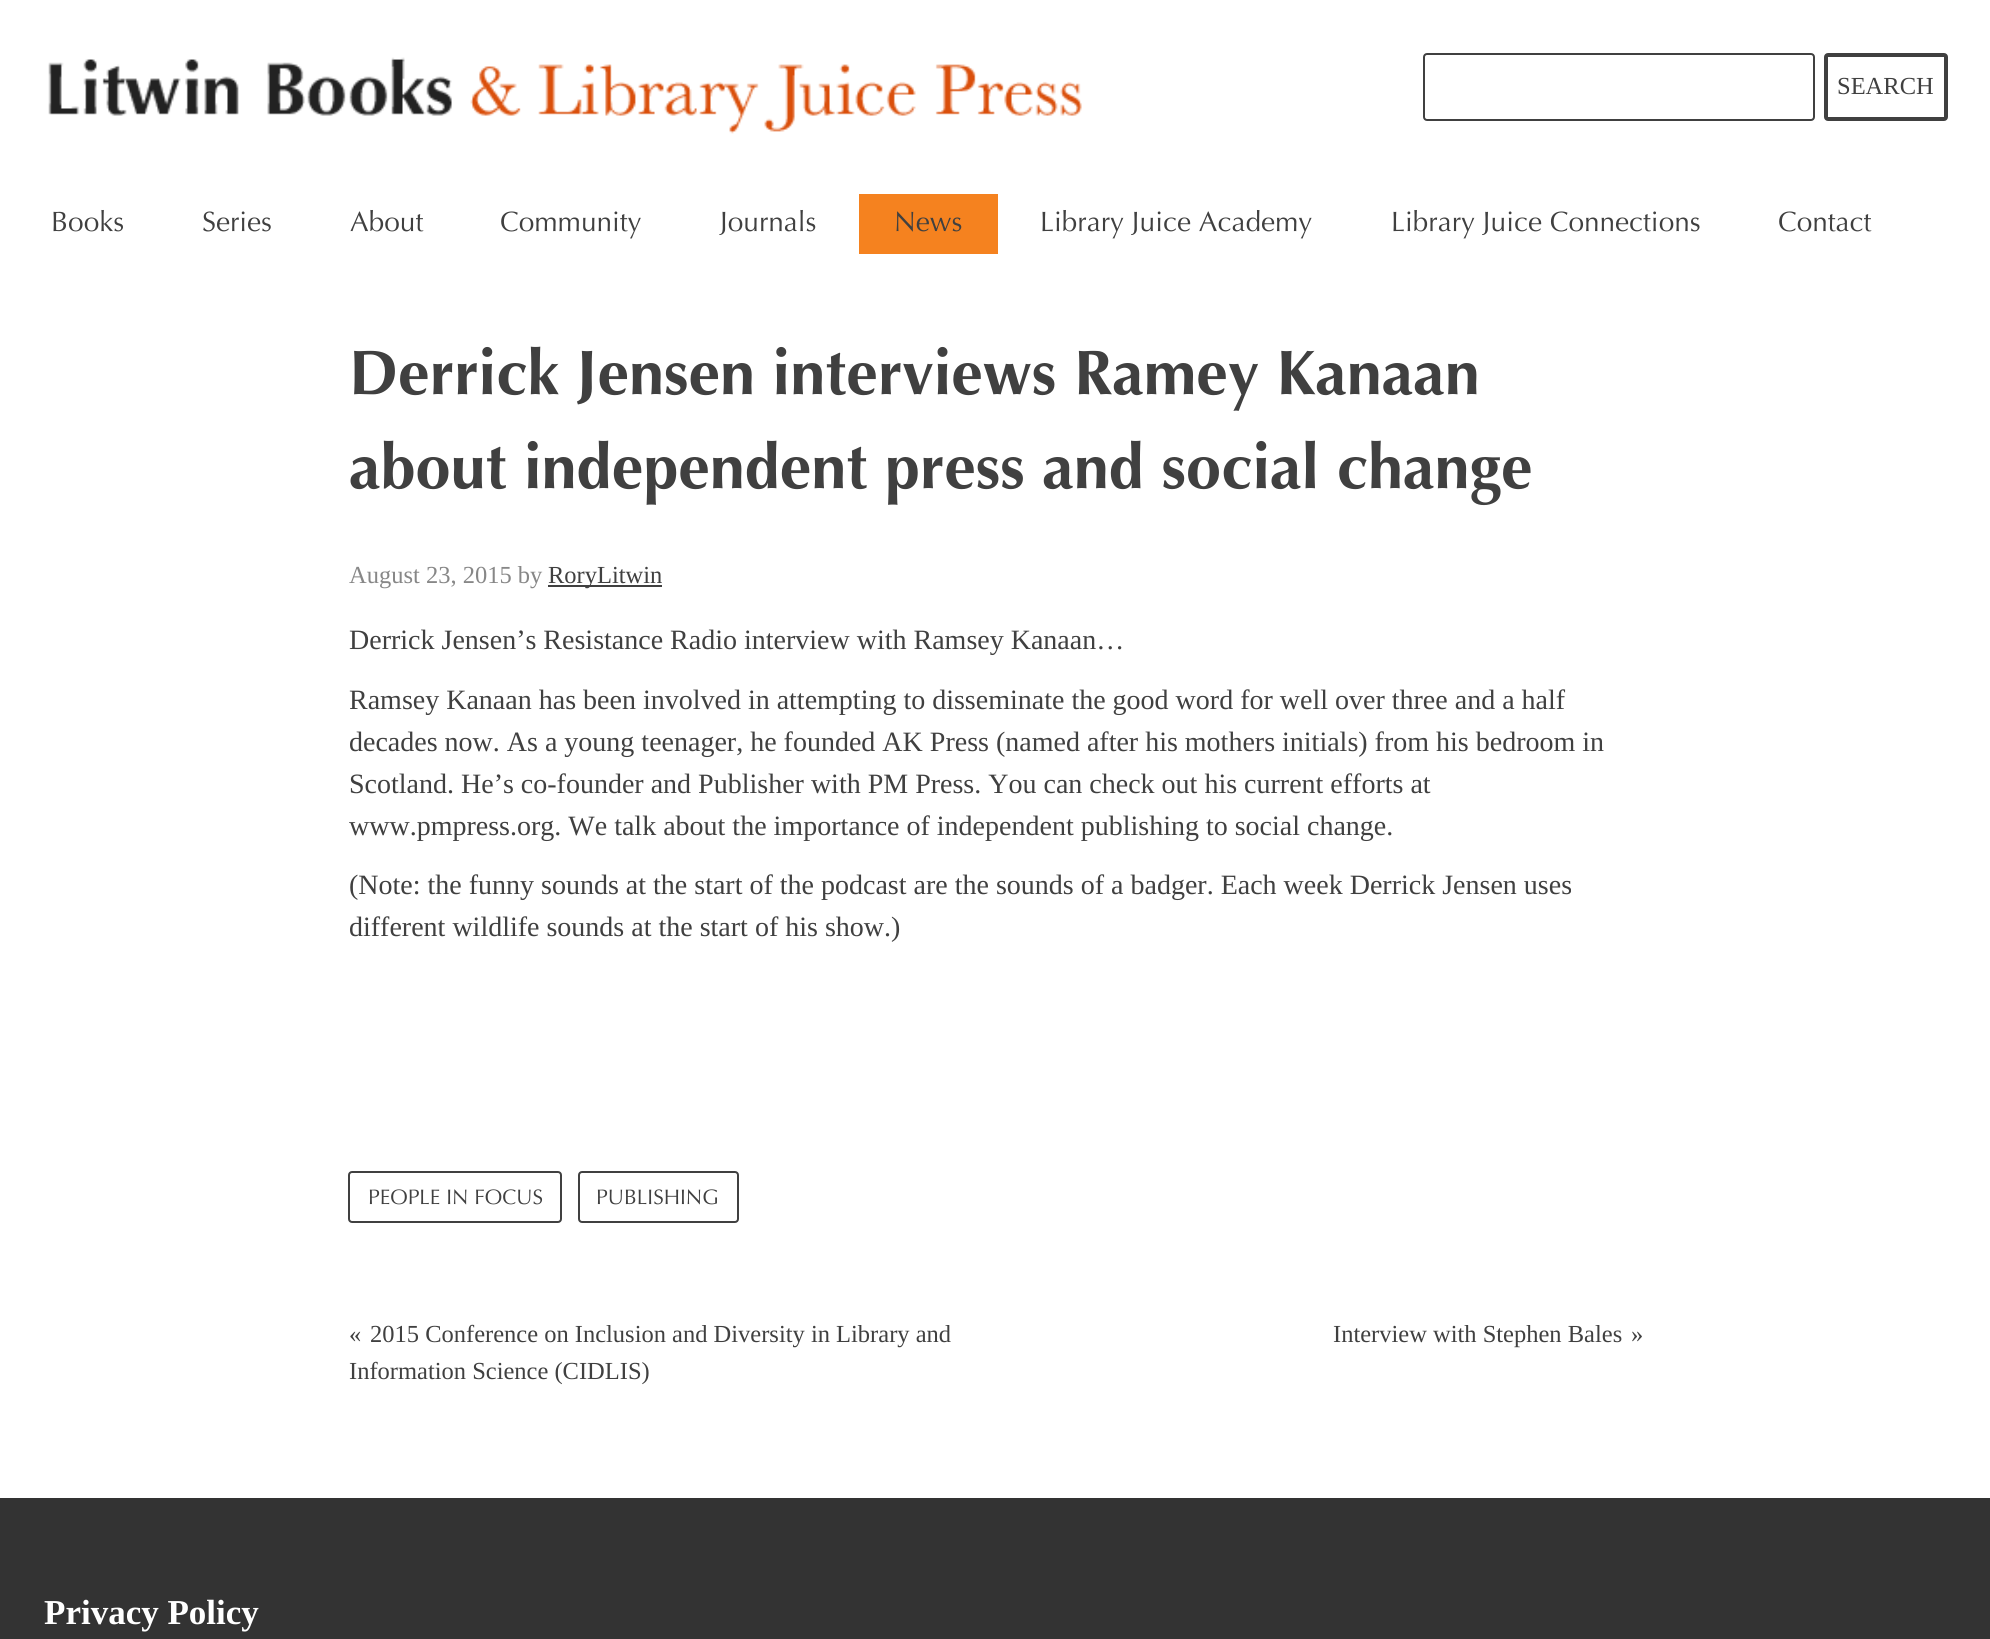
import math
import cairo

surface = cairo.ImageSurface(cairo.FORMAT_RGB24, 1990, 1639)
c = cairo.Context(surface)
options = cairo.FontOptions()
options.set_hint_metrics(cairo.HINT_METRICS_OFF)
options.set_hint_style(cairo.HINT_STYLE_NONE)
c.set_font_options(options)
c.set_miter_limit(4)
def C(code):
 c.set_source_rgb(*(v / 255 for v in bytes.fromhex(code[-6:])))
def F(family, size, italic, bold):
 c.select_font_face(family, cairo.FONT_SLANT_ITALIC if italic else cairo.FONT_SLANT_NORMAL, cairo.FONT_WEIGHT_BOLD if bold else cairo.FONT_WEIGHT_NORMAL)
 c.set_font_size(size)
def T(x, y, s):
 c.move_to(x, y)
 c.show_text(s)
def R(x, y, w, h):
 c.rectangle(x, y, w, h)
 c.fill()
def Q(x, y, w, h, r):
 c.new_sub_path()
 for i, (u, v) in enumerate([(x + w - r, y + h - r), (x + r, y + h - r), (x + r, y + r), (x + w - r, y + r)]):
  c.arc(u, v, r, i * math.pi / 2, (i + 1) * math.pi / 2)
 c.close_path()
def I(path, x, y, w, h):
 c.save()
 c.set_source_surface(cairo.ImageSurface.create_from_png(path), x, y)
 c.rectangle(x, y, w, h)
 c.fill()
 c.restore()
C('ffffff')
c.paint()
I('1.png',48,57,1034,77)
Q(1424,54,390,66,3)
C('404040')
c.stroke()
Q(1826,55,120,64,2)
c.set_line_width(4)
c.stroke()
F('Liberation Serif',24.5,0,0)
T(1837,94,'SEARCH')
F('Optima',28,0,0)
T(51,231,'Books')
T(202,231,'Series')
T(350,231,'About')
T(500,231,'Community')
T(720,231,'Journals')
C('f5821f')
R(859,194,139,60)
C('404040')
T(894,231,'News')
T(1040,231,'Library Juice Academy')
T(1391,231,'Library Juice Connections')
T(1778,231,'Contact')
F('Optima',63,0,1)
T(349,394,'Derrick Jensen interviews Ramey Kanaan')
T(349,488,'about independent press and social change')
F('Liberation Serif',24.5,0,0)
C('878787')
T(349,583,'August 23, 2015 by')
C('404040')
R(548,585,114,2)
T(548,583,'RoryLitwin')
F('Liberation Serif',28,0,0)
T(349,649,'Derrick Jensen’s Resistance Radio interview with Ramsey Kanaan…')
T(349,709,'Ramsey Kanaan has been involved in attempting to disseminate the good word for well over three and a half')
T(349,751,'decades now. As a young teenager, he founded AK Press (named after his mothers initials) from his bedroom in')
T(349,793,'Scotland. He’s co-founder and Publisher with PM Press. You can check out his current efforts at')
T(349,835,'www.pmpress.org. We talk about the importance of independent publishing to social change.')
T(349,894,'(Note: the funny sounds at the start of the podcast are the sounds of a badger. Each week Derrick Jensen uses')
T(349,936,'different wildlife sounds at the start of his show.)')
Q(349,1172,212,50,3)
c.set_line_width(2)
c.stroke()
F('Optima',21,0,0)
T(368,1204,'PEOPLE IN FOCUS')
Q(579,1172,159,50,3)
c.stroke()
T(596,1204,'PUBLISHING')
F('Liberation Serif',24.5,0,0)
T(349,1342,'«')
T(370,1342,'2015 Conference on Inclusion and Diversity in Library and')
T(349,1379,'Information Science (CIDLIS)')
T(1333,1342,'Interview with Stephen Bales')
T(1631,1342,'»')
C('333333')
R(0,1498,1990,141)
F('Liberation Serif',35,0,1)
C('ffffff')
T(44,1624,'Privacy Policy')
surface.write_to_png('o.png')
